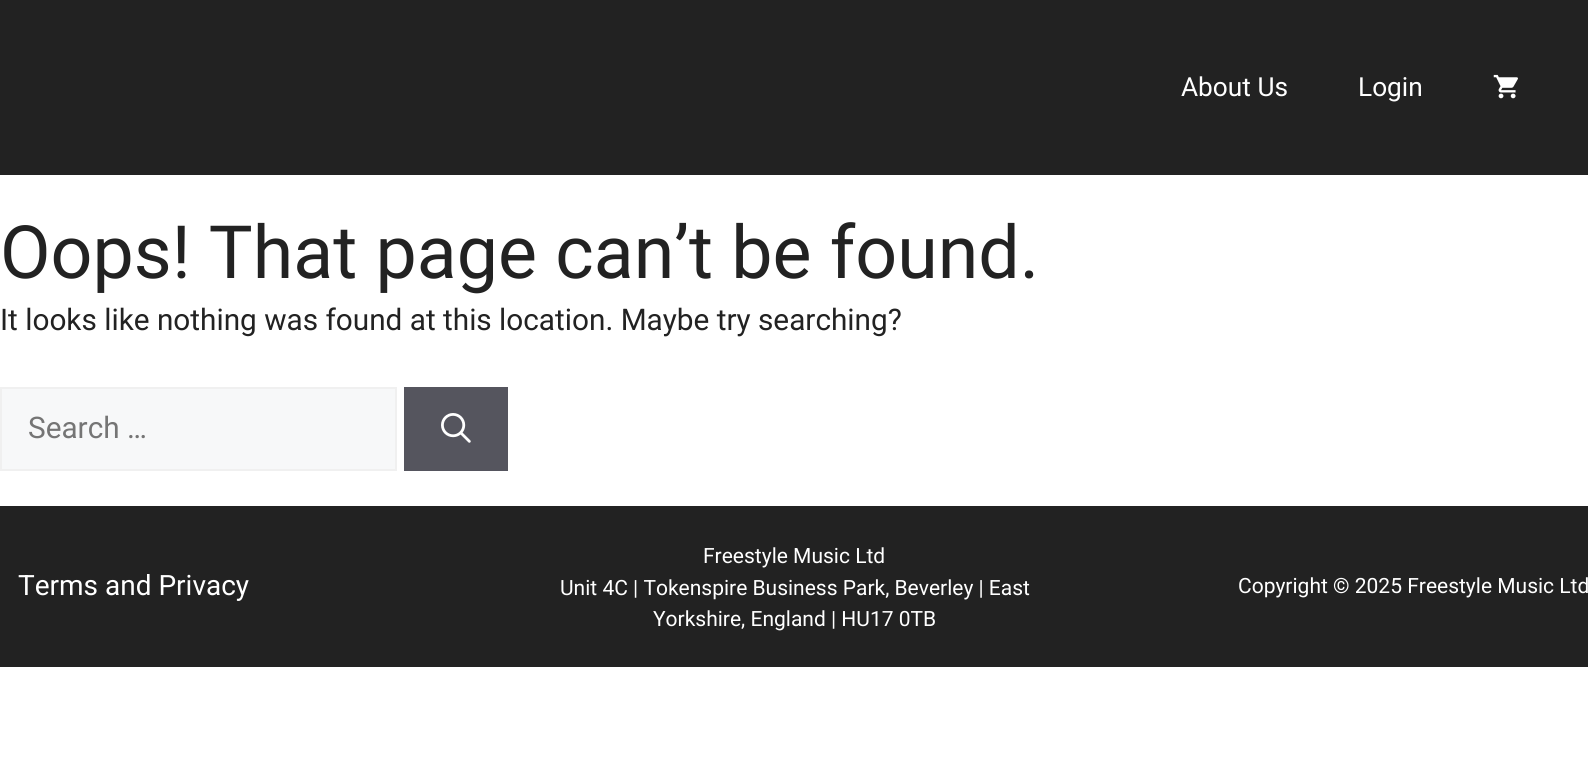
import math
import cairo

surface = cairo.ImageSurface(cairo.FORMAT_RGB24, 1588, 771)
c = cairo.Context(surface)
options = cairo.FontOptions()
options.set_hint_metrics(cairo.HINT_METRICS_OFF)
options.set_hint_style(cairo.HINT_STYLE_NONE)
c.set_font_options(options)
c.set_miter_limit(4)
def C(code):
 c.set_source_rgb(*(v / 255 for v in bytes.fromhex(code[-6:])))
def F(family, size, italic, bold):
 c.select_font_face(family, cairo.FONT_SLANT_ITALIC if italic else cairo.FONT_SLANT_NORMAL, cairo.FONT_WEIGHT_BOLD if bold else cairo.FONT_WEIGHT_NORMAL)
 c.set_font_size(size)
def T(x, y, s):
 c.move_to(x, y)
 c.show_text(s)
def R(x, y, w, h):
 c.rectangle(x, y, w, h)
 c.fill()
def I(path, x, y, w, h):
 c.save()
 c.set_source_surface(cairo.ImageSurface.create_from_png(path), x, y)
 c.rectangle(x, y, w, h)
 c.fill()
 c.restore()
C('ffffff')
c.paint()
C('222222')
R(0,0,1588,175)
F('Roboto',26.25,0,0)
C('ffffff')
T(1181,96,'About Us')
T(1358,96,'Login')
I('1.png',1493,74,25,25)
F('Roboto',73.5,0,0)
C('222222')
T(0,278,'Oops! That page can’t be found.')
F('Roboto',29.75,0,0)
T(0,330,'It looks like nothing was found at this location. Maybe try searching?')
C('f7f8f9')
c.rectangle(1,388,395,82)
c.fill_preserve()
C('f0f0f0')
c.stroke()
C('757575')
T(28,438,'Search …')
C('55555e')
R(404,387,104,84)
I('2.png',441,413,30,30)
C('222222')
R(0,506,1588,161)
F('Roboto',28,0,0)
C('ffffff')
T(18,595,'Terms and Privacy')
F('Roboto',21,0,0)
T(703,563,'Freestyle Music Ltd')
T(560,595,'Unit 4C | Tokenspire Business Park, Beverley | East')
T(653,626,'Yorkshire, England | HU17 0TB')
T(1238,593,'Copyright © 2025 Freestyle Music Ltd')
surface.write_to_png('o.png')
